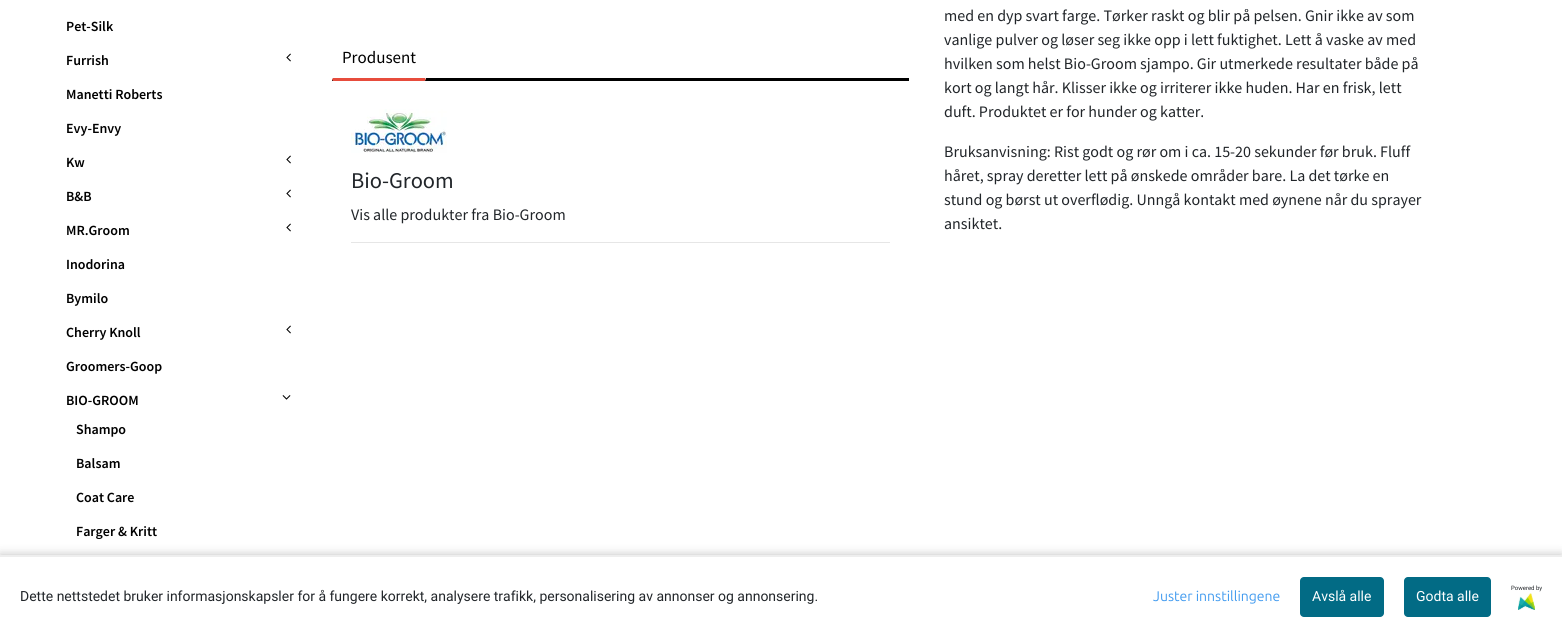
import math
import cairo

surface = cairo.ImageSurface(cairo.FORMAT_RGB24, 1562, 637)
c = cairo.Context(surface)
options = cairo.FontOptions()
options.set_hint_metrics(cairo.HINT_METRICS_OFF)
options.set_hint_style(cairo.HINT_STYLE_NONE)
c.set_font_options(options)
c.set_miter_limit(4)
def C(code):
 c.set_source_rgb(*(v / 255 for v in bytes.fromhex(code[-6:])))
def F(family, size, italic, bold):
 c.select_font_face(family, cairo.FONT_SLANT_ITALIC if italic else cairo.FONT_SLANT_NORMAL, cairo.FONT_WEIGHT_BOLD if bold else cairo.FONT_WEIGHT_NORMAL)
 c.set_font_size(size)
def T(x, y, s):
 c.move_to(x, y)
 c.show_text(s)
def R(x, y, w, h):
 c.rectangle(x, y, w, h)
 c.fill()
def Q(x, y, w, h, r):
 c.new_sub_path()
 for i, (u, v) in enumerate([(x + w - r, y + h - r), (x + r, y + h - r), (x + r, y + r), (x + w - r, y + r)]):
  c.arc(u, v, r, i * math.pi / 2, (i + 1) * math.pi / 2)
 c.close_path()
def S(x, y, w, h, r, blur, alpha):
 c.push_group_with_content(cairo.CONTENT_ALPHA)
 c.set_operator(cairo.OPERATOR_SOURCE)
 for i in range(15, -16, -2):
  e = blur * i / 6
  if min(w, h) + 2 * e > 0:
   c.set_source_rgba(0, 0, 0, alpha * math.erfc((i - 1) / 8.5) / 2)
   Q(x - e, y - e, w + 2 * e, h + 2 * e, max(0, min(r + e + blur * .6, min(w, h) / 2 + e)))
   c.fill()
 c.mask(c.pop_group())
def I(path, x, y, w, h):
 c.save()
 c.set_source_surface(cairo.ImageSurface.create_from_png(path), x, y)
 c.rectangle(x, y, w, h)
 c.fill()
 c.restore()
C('ffffff')
c.paint()
F('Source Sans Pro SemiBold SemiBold',14,0,0)
C('000000')
T(66,31,'Pet-Silk')
T(66,65,'Furrish')
I('1.png',286,53,5,9)
T(66,99,'Manetti Roberts')
T(66,133,'Evy-Envy')
T(66,167,'Kw')
I('1.png',286,155,5,9)
T(66,201,'B&B')
I('1.png',286,189,5,9)
T(66,235,'MR.Groom')
I('1.png',286,223,5,9)
T(66,269,'Inodorina')
T(66,303,'Bymilo')
T(66,337,'Cherry Knoll')
I('1.png',286,325,5,9)
T(66,371,'Groomers-Goop')
T(66,405,'BIO-GROOM')
I('2.png',282,395,9,5)
T(76,434,'Shampo')
T(76,468,'Balsam')
T(76,502,'Coat Care')
T(76,536,'Farger & Kritt')
R(332,78,577,3)
C('ffffff')
Q(332,36,94,45,3)
c.fill()
C('e74c3c')
c.new_path()
c.move_to(335,81)
c.line_to(424,81)
c.line_to(426,80)
c.line_to(425,78)
c.line_to(333,78)
c.line_to(332,80)
c.curve_to(333,81,334,81,335,81)
c.close_path()
c.fill()
F('Source Sans Pro',17,0,0)
C('000000')
T(342,63,'Produsent')
I('3.png',351,109,96,44)
F('Source Sans Pro',22.5,0,0)
C('212529')
T(351,188,'Bio-Groom')
F('Source Sans Pro',16,0,0)
T(351,220,'Vis alle produkter fra Bio-Groom')
C('e6e6e6')
R(351,242,539,1)
C('212529')
T(944,21,'med en dyp svart farge. Tørker raskt og blir på pelsen. Gnir ikke av som')
T(944,45,'vanlige pulver og løser seg ikke opp i lett fuktighet. Lett å vaske av med')
T(944,69,'hvilken som helst Bio-Groom sjampo. Gir utmerkede resultater både på')
T(944,93,'kort og langt hår. Klisser ikke og irriterer ikke huden. Har en frisk, lett')
T(944,117,'duft. Produktet er for hunder og katter.')
T(944,157,'Bruksanvisning: Rist godt og rør om i ca. 15-20 sekunder før bruk. Fluff')
T(944,181,'håret, spray deretter lett på ønskede områder bare. La det tørke en')
T(944,205,'stund og børst ut overflødig. Unngå kontakt med øynene når du sprayer')
T(944,229,'ansiktet.')
C('000000')
S(0,555,1562,82,0,5,.25)
C('ffffff')
R(0,557,1562,80)
C('eeeeee')
R(0,555,1562,2)
F('Roboto',14,0,0)
C('212529')
T(20,601,'Dette nettstedet bruker informasjonskapsler for å fungere korrekt, analysere trafikk, personalisering av annonser og annonsering.')
F('Ubuntu',14,0,0)
C('409aef')
T(1153,601,'Juster innstillingene')
C('026b85')
Q(1300,577,84,40,4)
c.fill()
F('Roboto',14,0,0)
C('ffffff')
T(1312,601,'Avslå alle')
C('026b85')
Q(1404,577,87,40,4)
c.fill()
C('ffffff')
T(1416,601,'Godta alle')
F('Roboto',6,0,0)
C('212529')
T(1511,590,'Powered by')
I('4.png',1518,593,17,17)
surface.write_to_png('o.png')
